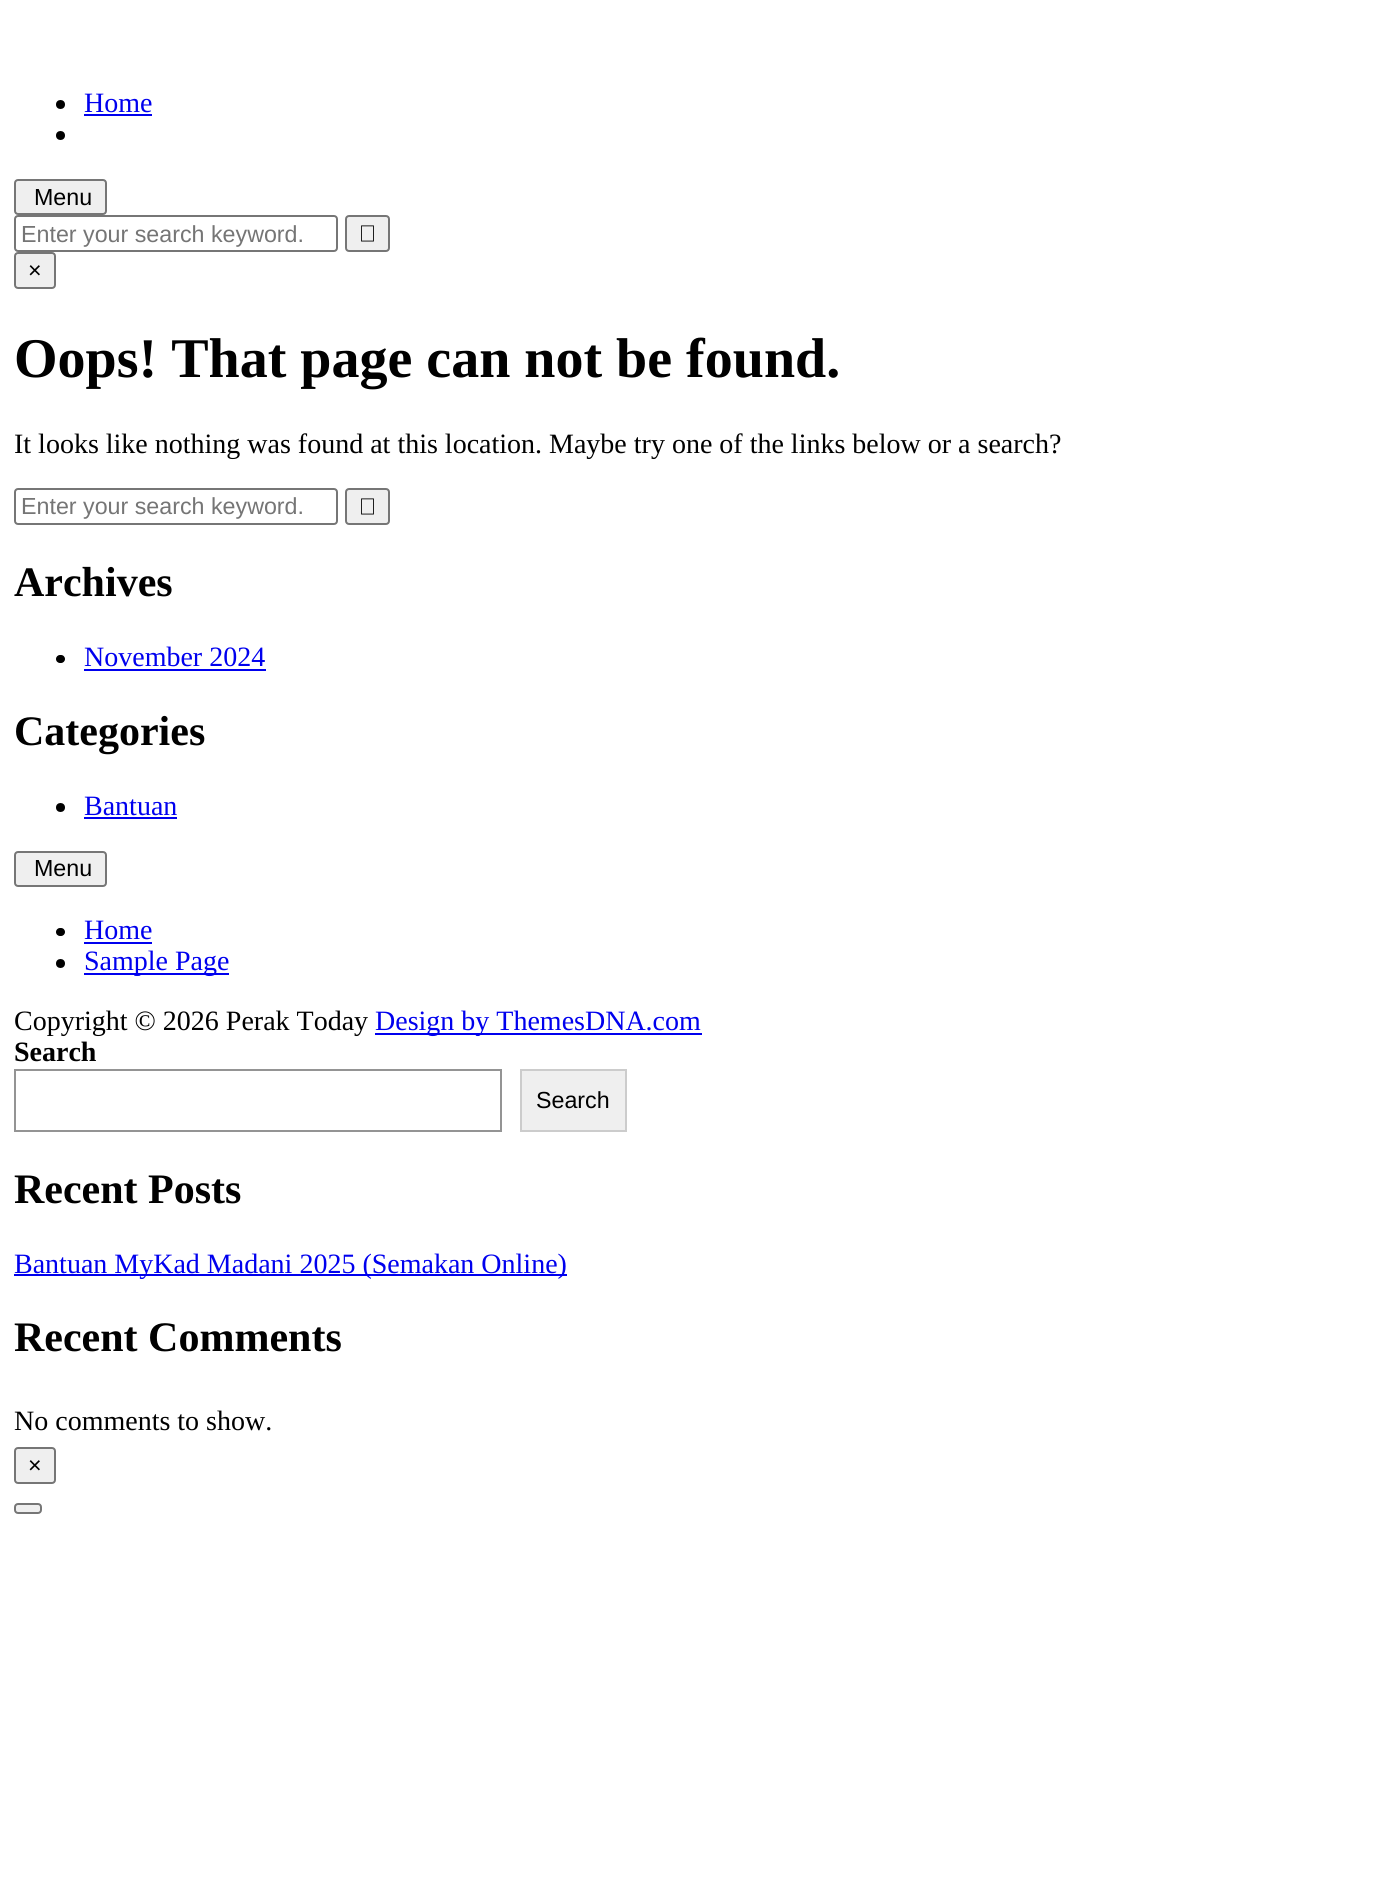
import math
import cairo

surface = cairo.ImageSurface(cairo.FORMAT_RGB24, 1377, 1902)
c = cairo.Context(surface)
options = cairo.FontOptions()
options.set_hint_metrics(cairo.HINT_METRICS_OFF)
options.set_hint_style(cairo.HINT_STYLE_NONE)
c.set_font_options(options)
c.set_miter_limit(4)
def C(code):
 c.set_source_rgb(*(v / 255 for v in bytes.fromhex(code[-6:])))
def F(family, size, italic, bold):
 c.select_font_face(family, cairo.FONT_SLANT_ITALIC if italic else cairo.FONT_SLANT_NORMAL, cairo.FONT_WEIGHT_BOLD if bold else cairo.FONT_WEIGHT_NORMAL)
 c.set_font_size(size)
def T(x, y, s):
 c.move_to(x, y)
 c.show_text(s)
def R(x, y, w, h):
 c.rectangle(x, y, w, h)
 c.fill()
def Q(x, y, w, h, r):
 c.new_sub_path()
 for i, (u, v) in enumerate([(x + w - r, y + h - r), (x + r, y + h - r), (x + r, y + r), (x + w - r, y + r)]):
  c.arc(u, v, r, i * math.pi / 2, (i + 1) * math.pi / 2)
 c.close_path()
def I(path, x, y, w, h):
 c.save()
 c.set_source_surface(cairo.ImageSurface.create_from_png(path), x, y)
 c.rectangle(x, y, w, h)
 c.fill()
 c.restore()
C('ffffff')
c.paint()
C('000000')
c.arc(60.5,104.5,4.5,0,2 * math.pi)
c.fill()
F('Liberation Serif',28,0,0)
C('0000ee')
T(84,112,'Home')
R(84,114,68,2)
C('000000')
c.new_path()
c.arc(60.5,135.5,4.5,0,2 * math.pi)
c.fill()
C('efefef')
Q(15,180,91,34,3)
c.fill_preserve()
C('767676')
c.stroke()
F('Liberation Sans',23.25,0,0)
C('000000')
T(34,205,'Menu')
Q(15,216,322,35,3)
C('767676')
c.stroke()
C('757575')
T(21,242,'Enter your search keyword.')
C('efefef')
Q(346,216,43,35,3)
c.fill_preserve()
C('767676')
c.stroke()
I('1.png',361,225,13,17)
C('efefef')
Q(15,253,40,35,3)
c.fill_preserve()
C('767676')
c.stroke()
C('000000')
T(28,278,'×')
F('Liberation Serif',56,0,1)
T(14,377,'Oops! That page can not be found.')
F('Liberation Serif',28,0,0)
T(14,453,'It looks like nothing was found at this location. Maybe try one of the links below or a search?')
Q(15,489,322,35,3)
C('767676')
c.stroke()
F('Liberation Sans',23.25,0,0)
C('757575')
T(21,514,'Enter your search keyword.')
C('efefef')
Q(346,489,43,35,3)
c.fill_preserve()
C('767676')
c.stroke()
I('1.png',361,498,13,17)
F('Liberation Serif',42,0,1)
C('000000')
T(14,596,'Archives')
Q(56,655,9,8,4)
c.fill()
F('Liberation Serif',28,0,0)
C('0000ee')
T(84,666,'November 2024')
R(84,669,182,2)
F('Liberation Serif',42,0,1)
C('000000')
T(14,745,'Categories')
c.new_path()
c.arc(60.5,807.5,4.5,0,2 * math.pi)
c.fill()
F('Liberation Serif',28,0,0)
C('0000ee')
T(84,815,'Bantuan')
R(84,817,93,2)
C('efefef')
Q(15,852,91,34,3)
c.fill_preserve()
C('767676')
c.stroke()
F('Liberation Sans',23.25,0,0)
C('000000')
T(34,876,'Menu')
Q(56,928,9,8,4)
c.fill()
F('Liberation Serif',28,0,0)
C('0000ee')
T(84,939,'Home')
R(84,942,68,2)
C('000000')
c.new_path()
c.arc(60.5,963.5,4.5,0,2 * math.pi)
c.fill()
C('0000ee')
R(84,973,145,2)
T(84,970,'Sample Page')
C('000000')
T(14,1030,'Copyright © 2026 Perak Today')
C('0000ee')
R(375,1033,327,2)
T(375,1030,'Design by ThemesDNA.com')
F('Liberation Serif',28,0,1)
C('000000')
T(14,1061,'Search')
c.rectangle(15,1070,486,61)
C('949494')
c.stroke()
C('efefef')
c.rectangle(521,1070,105,61)
c.fill_preserve()
C('cccccc')
c.stroke()
F('Liberation Sans',23.25,0,0)
C('000000')
T(536,1108,'Search')
F('Liberation Serif',42,0,1)
T(14,1203,'Recent Posts')
C('0000ee')
R(14,1274,553,2)
F('Liberation Serif',28,0,0)
T(14,1273,'Bantuan MyKad Madani 2025 (Semakan Online)')
F('Liberation Serif',42,0,1)
C('000000')
T(14,1351,'Recent Comments')
F('Liberation Serif',28,0,0)
T(14,1430,'No comments to show.')
C('efefef')
Q(15,1448,40,35,3)
c.fill_preserve()
C('767676')
c.stroke()
F('Liberation Sans',23.25,0,0)
C('000000')
T(28,1473,'×')
C('efefef')
Q(15,1504,26,9,3)
c.fill_preserve()
C('767676')
c.stroke()
surface.write_to_png('o.png')
